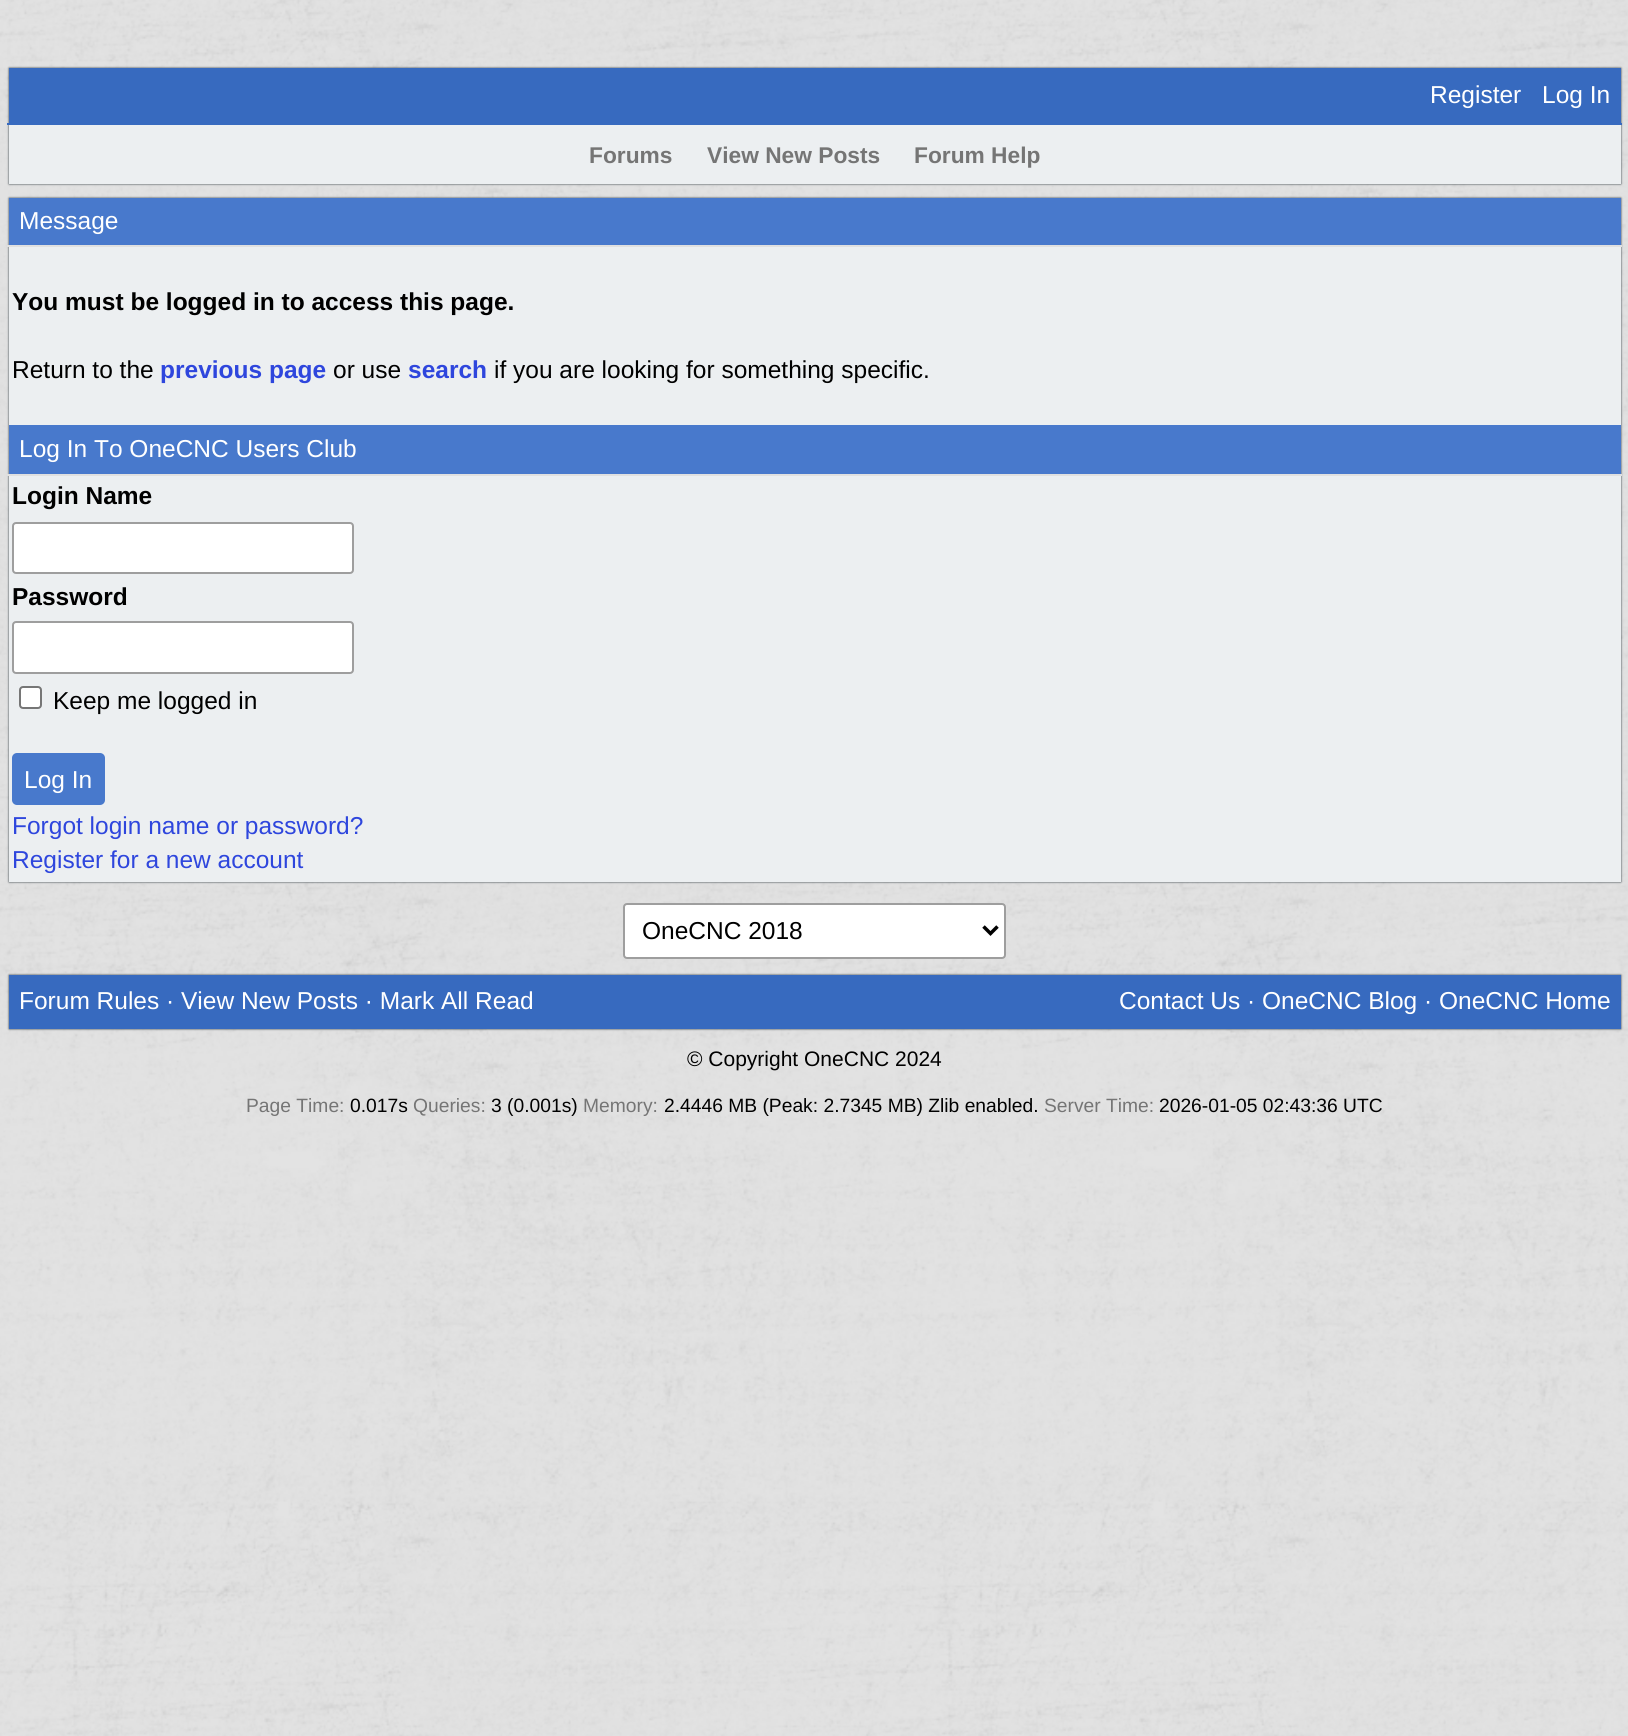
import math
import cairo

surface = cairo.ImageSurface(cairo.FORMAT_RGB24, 1628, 1736)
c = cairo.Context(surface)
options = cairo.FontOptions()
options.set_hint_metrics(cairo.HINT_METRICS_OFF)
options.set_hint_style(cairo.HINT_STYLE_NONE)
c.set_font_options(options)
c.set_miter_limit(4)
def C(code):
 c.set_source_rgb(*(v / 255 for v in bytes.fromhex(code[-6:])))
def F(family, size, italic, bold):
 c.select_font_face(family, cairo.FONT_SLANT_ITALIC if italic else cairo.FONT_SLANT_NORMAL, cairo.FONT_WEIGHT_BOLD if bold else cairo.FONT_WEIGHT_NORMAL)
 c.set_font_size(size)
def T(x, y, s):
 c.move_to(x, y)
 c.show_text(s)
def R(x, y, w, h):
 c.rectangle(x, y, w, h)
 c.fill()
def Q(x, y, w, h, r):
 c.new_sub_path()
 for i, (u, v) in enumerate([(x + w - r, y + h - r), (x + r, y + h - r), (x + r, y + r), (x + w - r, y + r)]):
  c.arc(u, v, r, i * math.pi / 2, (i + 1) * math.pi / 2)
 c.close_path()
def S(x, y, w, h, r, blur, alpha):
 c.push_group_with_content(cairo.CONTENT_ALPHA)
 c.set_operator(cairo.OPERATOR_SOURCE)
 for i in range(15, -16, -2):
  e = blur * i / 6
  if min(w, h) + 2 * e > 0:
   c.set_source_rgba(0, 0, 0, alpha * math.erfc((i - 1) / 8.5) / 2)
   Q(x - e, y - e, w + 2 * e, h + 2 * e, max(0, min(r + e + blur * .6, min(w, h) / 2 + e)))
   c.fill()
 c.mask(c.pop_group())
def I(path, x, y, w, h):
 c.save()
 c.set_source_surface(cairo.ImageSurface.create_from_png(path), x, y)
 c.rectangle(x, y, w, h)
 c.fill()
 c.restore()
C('ffffff')
c.paint()
I('1.png',0,0,1628,1736)
C('263238')
S(9,68,1612,116,0,1,1)
C('376abf')
R(9,68,1612,55)
F('Liberation Sans',24.5,0,0)
C('ffffff')
T(1430,103,'Register')
T(1542,103,'Log In')
C('eceff1')
R(9,125,1612,59)
C('376abf')
R(7,123,1615,2)
F('Liberation Sans',22.75,0,1)
C('757575')
T(589,163,'Forums')
T(707,163,'View New Posts')
T(914,163,'Forum Help')
C('263238')
S(9,198,1612,684,0,1,1)
C('4879cc')
R(9,198,1612,47)
F('Liberation Sans',24.5,0,0)
C('ffffff')
T(19,229,'Message')
C('eceff1')
R(9,247,1612,178)
C('e0e0e0')
R(7,245,1615,2)
F('Liberation Sans',24.5,0,1)
C('000000')
T(12,310,'You must be logged in to access this page.')
F('Liberation Sans',24.5,0,0)
T(12,378,'Return to the')
F('Liberation Sans',24.5,0,1)
C('2e46dd')
T(160,378,'previous page')
F('Liberation Sans',24.5,0,0)
C('000000')
T(333,378,'or use')
F('Liberation Sans',24.5,0,1)
C('2e46dd')
T(408,378,'search')
F('Liberation Sans',24.5,0,0)
C('000000')
T(494,378,'if you are looking for something specific.')
C('4879cc')
R(9,425,1612,49)
C('ffffff')
T(19,457,'Log In To OneCNC Users Club')
C('eceff1')
R(9,476,1612,406)
C('e0e0e0')
R(7,474,1615,2)
F('Liberation Sans',24.5,0,1)
C('000000')
T(12,504,'Login Name')
C('ffffff')
Q(13,523,340,50,3)
c.fill_preserve()
C('9e9e9e')
c.stroke()
C('000000')
T(12,605,'Password')
C('ffffff')
Q(13,622,340,51,3)
c.fill_preserve()
C('9e9e9e')
c.stroke()
C('ffffff')
Q(20,687,21,21,3)
c.fill_preserve()
C('767676')
c.stroke()
F('Liberation Sans',24.5,0,0)
C('000000')
T(53,709,'Keep me logged in')
C('4879cc')
Q(12,753,93,52,5)
c.fill()
C('ffffff')
T(24,788,'Log In')
C('2e46dd')
T(12,834,'Forgot login name or password?')
T(12,868,'Register for a new account')
C('ffffff')
Q(624,904,381,54,3)
c.fill_preserve()
C('9e9e9e')
c.stroke()
c.new_path()
c.move_to(983.5,926.5)
c.line_to(990.5,933.5)
c.line_to(997.5,926.5)
C('000000')
c.set_line_width(3.5)
c.stroke()
T(642,939,'OneCNC 2018')
C('263238')
S(9,975,1612,54,0,1,1)
C('376abf')
R(9,975,1612,54)
C('ffffff')
T(19,1009,'Forum Rules · View New Posts · Mark All Read')
T(1119,1009,'Contact Us · OneCNC Blog · OneCNC Home')
F('Liberation Sans',21,0,0)
C('000000')
T(687,1066,'© Copyright OneCNC 2024')
F('Liberation Sans',19.25,0,0)
C('757575')
T(246,1112,'Page Time:')
C('000000')
T(350,1112,'0.017s')
C('757575')
T(413,1112,'Queries:')
C('000000')
T(491,1112,'3 (0.001s)')
C('757575')
T(583,1112,'Memory:')
C('000000')
T(664,1112,'2.4446 MB (Peak: 2.7345 MB) Zlib enabled.')
C('757575')
T(1044,1112,'Server Time:')
C('000000')
T(1159,1112,'2026-01-05 02:43:36 UTC')
surface.write_to_png('o.png')
